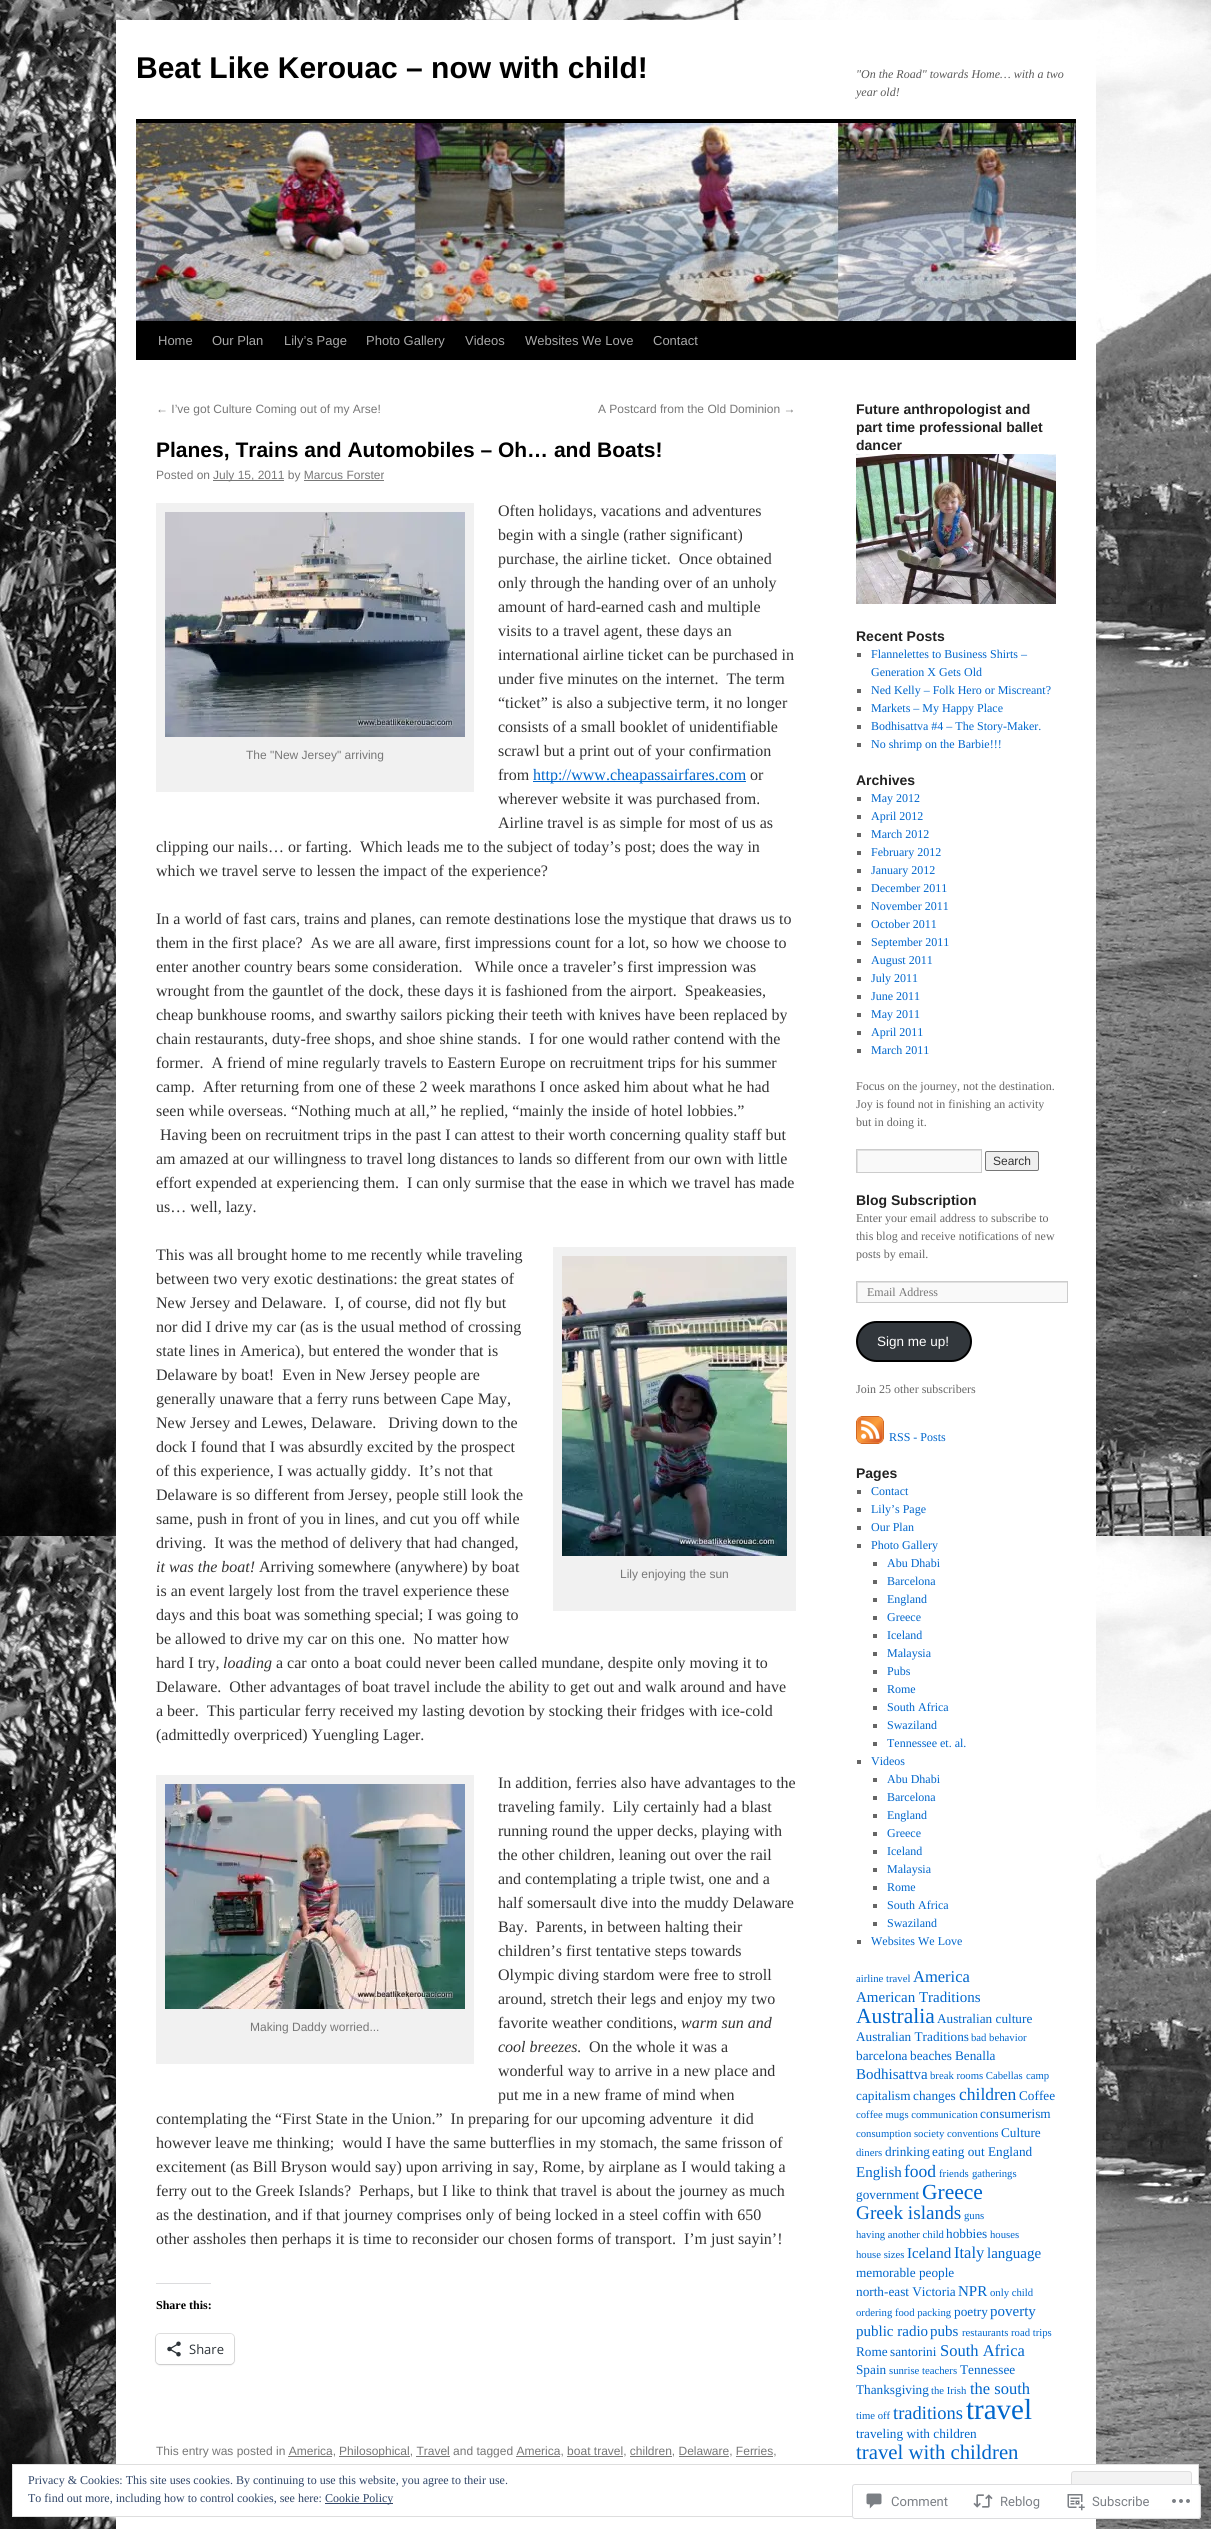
import math
import cairo

surface = cairo.ImageSurface(cairo.FORMAT_RGB24, 1211, 2529)
c = cairo.Context(surface)
options = cairo.FontOptions()
options.set_hint_metrics(cairo.HINT_METRICS_OFF)
options.set_hint_style(cairo.HINT_STYLE_NONE)
c.set_font_options(options)
c.set_miter_limit(4)
def C(code):
 c.set_source_rgb(*(v / 255 for v in bytes.fromhex(code[-6:])))
def F(family, size, italic, bold):
 c.select_font_face(family, cairo.FONT_SLANT_ITALIC if italic else cairo.FONT_SLANT_NORMAL, cairo.FONT_WEIGHT_BOLD if bold else cairo.FONT_WEIGHT_NORMAL)
 c.set_font_size(size)
def T(x, y, s):
 c.move_to(x, y)
 c.show_text(s)
def R(x, y, w, h):
 c.rectangle(x, y, w, h)
 c.fill()
def Q(x, y, w, h, r):
 c.new_sub_path()
 for i, (u, v) in enumerate([(x + w - r, y + h - r), (x + r, y + h - r), (x + r, y + r), (x + w - r, y + r)]):
  c.arc(u, v, r, i * math.pi / 2, (i + 1) * math.pi / 2)
 c.close_path()
def S(x, y, w, h, r, blur, alpha):
 c.push_group_with_content(cairo.CONTENT_ALPHA)
 c.set_operator(cairo.OPERATOR_SOURCE)
 for i in range(15, -16, -2):
  e = blur * i / 6
  if min(w, h) + 2 * e > 0:
   c.set_source_rgba(0, 0, 0, alpha * math.erfc((i - 1) / 8.5) / 2)
   Q(x - e, y - e, w + 2 * e, h + 2 * e, max(0, min(r + e + blur * .6, min(w, h) / 2 + e)))
   c.fill()
 c.mask(c.pop_group())
def I(path, x, y, w, h):
 c.save()
 c.set_source_surface(cairo.ImageSurface.create_from_png(path), x, y)
 c.rectangle(x, y, w, h)
 c.fill()
 c.restore()
C('ffffff')
c.paint()
I('1.png',0,0,1211,2529)
C('ffffff')
R(116,20,980,2509)
F('Liberation Sans',30,0,1)
C('000000')
T(136,78,'Beat Like Kerouac – now with child!')
F('Liberation Serif',12,1,0)
C('595959')
T(856,78,'"On the Road" towards Home… with a two')
T(856,96,'year old!')
C('000000')
R(136,119,940,4)
R(136,321,940,39)
I('2.png',136,123,940,198)
F('Liberation Sans',13,0,0)
C('aaaaaa')
T(158,345,'Home')
T(212,345,'Our Plan')
T(284,345,'Lily’s Page')
T(366,345,'Photo Gallery')
T(465,345,'Videos')
T(525,345,'Websites We Love')
T(653,345,'Contact')
F('Liberation Sans',12,0,0)
C('777777')
T(156,413,'← I’ve got Culture Coming out of my Arse!')
T(598,413,'A Postcard from the Old Dominion →')
F('Liberation Sans',21,0,1)
C('000000')
T(156,457,'Planes, Trains and Automobiles – Oh… and Boats!')
F('Liberation Sans',12,0,0)
C('777777')
T(156,479,'Posted on')
R(213,480,71,1)
T(213,479,'July 15, 2011 by Marcus Forster')
R(304,480,80,1)
F('Liberation Serif',16,0,0)
C('333333')
T(498,516,'Often holidays, vacations and adventures')
T(498,540,'begin with a single (rather significant)')
T(498,564,'purchase, the airline ticket.  Once obtained')
T(498,588,'only through the handing over of an unholy')
T(498,612,'amount of hard-earned cash and multiple')
T(498,636,'visits to a travel agent, these days an')
T(498,660,'international airline ticket can be purchased in')
T(498,684,'under five minutes on the internet.  The term')
T(498,708,'“ticket” is also a subjective term, it no longer')
T(498,732,'consists of a small booklet of unidentifiable')
T(498,756,'scrawl but a print out of your confirmation')
T(498,780,'from')
C('0066cc')
R(533,781,213,1)
T(533,780,'http://www.cheapassairfares.com')
C('333333')
T(750,780,'or')
T(498,804,'wherever website it was purchased from.')
T(498,828,'Airline travel is as simple for most of us as')
T(156,852,'clipping our nails… or farting.  Which leads me to the subject of today’s post; does the way in')
T(156,876,'which we travel serve to lessen the impact of the experience?')
C('f1f1f1')
R(156,503,318,289)
I('3.png',165,512,300,225)
F('Liberation Sans',12,0,0)
C('777777')
T(246,759,'The "New Jersey" arriving')
F('Liberation Serif',16,0,0)
C('333333')
T(156,924,'In a world of fast cars, trains and planes, can remote destinations lose the mystique that draws us to')
T(156,948,'them in the first place?  As we are all aware, first impressions count for a lot, so how we choose to')
T(156,972,'enter another country bears some consideration.   While once a traveler’s first impression was')
T(156,996,'wrought from the gauntlet of the dock, these days it is fashioned from the airport.  Speakeasies,')
T(156,1020,'cheap bunkhouse rooms, and swarthy sailors picking their teeth with knives have been replaced by')
T(156,1044,'chain restaurants, duty-free shops, and shoe shine stands.  I for one would rather contend with the')
T(156,1068,'former.  A friend of mine regularly travels to Eastern Europe on recruitment trips for his summer')
T(156,1092,'camp.  After returning from one of these 2 week marathons I once asked him about what he had')
T(156,1116,'seen while overseas. “Nothing much at all,” he replied, “mainly the inside of hotel lobbies.”')
T(160,1140,'Having been on recruitment trips in the past I can attest to their worth concerning quality staff but')
T(156,1164,'am amazed at our willingness to travel long distances to lands so different from our own with little')
T(156,1188,'effort expended at experiencing them.  I can only surmise that the ease in which we travel has made')
T(156,1212,'us… well, lazy.')
T(156,1260,'This was all brought home to me recently while traveling')
T(156,1284,'between two very exotic destinations: the great states of')
T(156,1308,'New Jersey and Delaware.  I, of course, did not fly but')
T(156,1332,'nor did I drive my car (as is the usual method of crossing')
T(156,1356,'state lines in America), but entered the wonder that is')
T(156,1380,'Delaware by boat!  Even in New Jersey people are')
T(156,1404,'generally unaware that a ferry runs between Cape May,')
T(156,1428,'New Jersey and Lewes, Delaware.   Driving down to the')
T(156,1452,'dock I found that I was absurdly excited by the prospect')
T(156,1476,'of this experience, I was actually giddy.  It’s not that')
T(156,1500,'Delaware is so different from Jersey, people still look the')
T(156,1524,'same, push in front of you in lines, and cut you off while')
T(156,1548,'driving.  It was the method of delivery that had changed,')
F('Liberation Serif',16,1,0)
T(156,1572,'it was the boat!')
F('Liberation Serif',16,0,0)
T(259,1572,'Arriving somewhere (anywhere) by boat')
T(156,1596,'is an event largely lost from the travel experience these')
T(156,1620,'days and this boat was something special; I was going to')
T(156,1644,'be allowed to drive my car on this one.  No matter how')
T(156,1668,'hard I try,')
F('Liberation Serif',16,1,0)
T(223,1668,'loading')
F('Liberation Serif',16,0,0)
T(276,1668,'a car onto a boat could never been called mundane, despite only moving it to')
T(156,1692,'Delaware.  Other advantages of boat travel include the ability to get out and walk around and have')
T(156,1716,'a beer.  This particular ferry received my lasting devotion by stocking their fridges with ice-cold')
T(156,1740,'(admittedly overpriced) Yuengling Lager.')
C('f1f1f1')
R(553,1247,243,364)
I('4.png',562,1256,225,300)
F('Liberation Sans',12,0,0)
C('777777')
T(620,1578,'Lily enjoying the sun')
F('Liberation Serif',16,0,0)
C('333333')
T(498,1788,'In addition, ferries also have advantages to the')
T(498,1812,'traveling family.  Lily certainly had a blast')
T(498,1836,'running round the upper decks, playing with')
T(498,1860,'the other children, leaning out over the rail')
T(498,1884,'and contemplating a triple twist, one and a')
T(498,1908,'half somersault dive into the muddy Delaware')
T(498,1932,'Bay.  Parents, in between halting their')
T(498,1956,'children’s first tentative steps towards')
T(498,1980,'Olympic diving stardom were free to stroll')
T(498,2004,'around, stretch their legs and enjoy my two')
T(498,2028,'favorite weather conditions,')
F('Liberation Serif',16,1,0)
T(681,2028,'warm sun and')
T(498,2052,'cool breezes.')
F('Liberation Serif',16,0,0)
T(589,2052,'On the whole it was a')
T(498,2076,'wonderful way to arrive in a new place and')
T(498,2100,'put me in a new frame of mind when')
T(156,2124,'contemplating the “First State in the Union.”  In preparing for our upcoming adventure  it did')
T(156,2148,'however leave me thinking;  would I have the same butterflies in my stomach, the same frisson of')
T(156,2172,'excitement (as Bill Bryson would say) upon arriving in say, Rome, by airplane as I would taking a')
T(156,2196,'ferry out to the Greek Islands?  Perhaps, but I like to think that travel is about the journey as much')
T(156,2220,'as the destination, and if that journey comprises only of being locked in a steel coffin with 650')
T(156,2244,'other assholes then perhaps it is time to reconsider our chosen forms of transport.  I’m just sayin’!')
C('f1f1f1')
R(156,1775,318,289)
I('5.png',165,1784,300,225)
F('Liberation Sans',12,0,0)
C('777777')
T(250,2031,'Making Daddy worried...')
C('dcdcde')
R(156,2283,55,1)
F('Liberation Serif',12,0,1)
C('000000')
T(156,2309,'Share this:')
Q(155.5,2333.5,79,31,4.5)
C('e0e0e0')
c.set_line_width(1)
c.stroke()
C('000000')
S(156,2335,78,30,4,1,.12)
C('ffffff')
Q(156,2334,78,30,4)
c.fill()
I('6.png',167,2341,14,16)
F('Open Sans',13,0,0)
C('2c3338')
T(189,2354,'Share')
F('Liberation Sans',12,0,0)
C('777777')
T(156,2455,'This entry was posted in America,')
R(339,2456,71,1)
T(339,2455,'Philosophical, Travel and tagged America, boat travel, children, Delaware, Ferries,')
R(288,2456,44,1)
R(416,2456,34,1)
R(516,2456,44,1)
R(567,2456,56,1)
R(630,2456,42,1)
R(679,2456,50,1)
R(736,2456,37,1)
F('Liberation Sans',14,0,1)
C('222222')
T(856,414,'Future anthropologist and')
T(856,432,'part time professional ballet')
T(856,450,'dancer')
I('7.png',856,454,200,150)
T(856,641,'Recent Posts')
C('666666')
R(857,653,4,4)
F('Liberation Serif',12,0,0)
C('0066cc')
T(871,658,'Flannelettes to Business Shirts –')
T(871,676,'Generation X Gets Old')
C('666666')
R(857,689,4,4)
C('0066cc')
T(871,694,'Ned Kelly – Folk Hero or Miscreant?')
C('666666')
R(857,707,4,4)
C('0066cc')
T(871,712,'Markets – My Happy Place')
C('666666')
R(857,725,4,4)
C('0066cc')
T(871,730,'Bodhisattva #4 – The Story-Maker.')
C('666666')
R(857,743,4,4)
C('0066cc')
T(871,748,'No shrimp on the Barbie!!!')
F('Liberation Sans',14,0,1)
C('222222')
T(856,785,'Archives')
C('666666')
R(857,797,4,4)
F('Liberation Serif',12,0,0)
C('0066cc')
T(871,802,'May 2012')
C('666666')
R(857,815,4,4)
C('0066cc')
T(871,820,'April 2012')
C('666666')
R(857,833,4,4)
C('0066cc')
T(871,838,'March 2012')
C('666666')
R(857,851,4,4)
C('0066cc')
T(871,856,'February 2012')
C('666666')
R(857,869,4,4)
C('0066cc')
T(871,874,'January 2012')
C('666666')
R(857,887,4,4)
C('0066cc')
T(871,892,'December 2011')
C('666666')
R(857,905,4,4)
C('0066cc')
T(871,910,'November 2011')
C('666666')
R(857,923,4,4)
C('0066cc')
T(871,928,'October 2011')
C('666666')
R(857,941,4,4)
C('0066cc')
T(871,946,'September 2011')
C('666666')
R(857,959,4,4)
C('0066cc')
T(871,964,'August 2011')
C('666666')
R(857,977,4,4)
C('0066cc')
T(871,982,'July 2011')
C('666666')
R(857,995,4,4)
C('0066cc')
T(871,1000,'June 2011')
C('666666')
R(857,1013,4,4)
C('0066cc')
T(871,1018,'May 2011')
C('666666')
R(857,1031,4,4)
C('0066cc')
T(871,1036,'April 2011')
C('666666')
R(857,1049,4,4)
C('0066cc')
T(871,1054,'March 2011')
C('666666')
T(856,1090,'Focus on the journey, not the destination.')
T(856,1108,'Joy is found not in finishing an activity')
T(856,1126,'but in doing it.')
C('f9f9f9')
R(858,1151,123,21)
c.save()
c.rectangle(857,1150,124,22)
c.clip()
C('e0e0e0')
c.set_fill_rule(cairo.FILL_RULE_EVEN_ODD)
c.new_path()
c.move_to(758,1051)
c.line_to(1080,1051)
c.line_to(1080,1271)
c.line_to(758,1271)
c.close_path()
c.move_to(858,1151)
c.line_to(982,1151)
c.line_to(982,1173)
c.line_to(858,1173)
c.close_path()
c.fill()
c.restore()
c.rectangle(856.5,1149.5,125,23)
C('cccccc')
c.stroke()
C('efefef')
Q(985.5,1151.5,53,19,1.5)
c.fill_preserve()
C('767676')
c.stroke()
F('Liberation Sans',12,0,0)
C('333333')
T(993,1165,'Search')
F('Liberation Sans',14,0,1)
C('222222')
T(856,1205,'Blog Subscription')
F('Liberation Serif',12,0,0)
C('666666')
T(856,1222,'Enter your email address to subscribe to')
T(856,1240,'this blog and receive notifications of new')
T(856,1258,'posts by email.')
C('f9f9f9')
R(858,1283,209,19)
c.save()
c.rectangle(857,1282,210,20)
c.clip()
C('e0e0e0')
c.set_fill_rule(cairo.FILL_RULE_EVEN_ODD)
c.new_path()
c.move_to(758,1183)
c.line_to(1166,1183)
c.line_to(1166,1401)
c.line_to(758,1401)
c.close_path()
c.move_to(858,1283)
c.line_to(1068,1283)
c.line_to(1068,1303)
c.line_to(858,1303)
c.close_path()
c.fill()
c.restore()
c.rectangle(856.5,1281.5,211,21)
C('cccccc')
c.stroke()
C('777777')
T(867,1296,'Email Address')
C('32373c')
Q(857,1322,114,39,19.5)
c.fill_preserve()
C('000000')
c.set_line_width(2)
c.stroke()
F('Liberation Sans',13.5,0,0)
C('ffffff')
T(877,1346,'Sign me up!')
F('Liberation Serif',12,0,0)
C('666666')
T(856,1393,'Join 25 other subscribers')
I('8.png',856,1416,28,28)
C('0066cc')
T(889,1441,'RSS - Posts')
F('Liberation Sans',14,0,1)
C('222222')
T(856,1478,'Pages')
C('666666')
R(857,1490,4,4)
F('Liberation Serif',12,0,0)
C('0066cc')
T(871,1495,'Contact')
C('666666')
R(857,1508,4,4)
C('0066cc')
T(871,1513,'Lily’s Page')
C('666666')
R(857,1526,4,4)
C('0066cc')
T(871,1531,'Our Plan')
C('666666')
R(857,1544,4,4)
C('0066cc')
T(871,1549,'Photo Gallery')
C('666666')
R(873,1562,4,4)
C('0066cc')
T(887,1567,'Abu Dhabi')
C('666666')
R(873,1580,4,4)
C('0066cc')
T(887,1585,'Barcelona')
C('666666')
R(873,1598,4,4)
C('0066cc')
T(887,1603,'England')
C('666666')
R(873,1616,4,4)
C('0066cc')
T(887,1621,'Greece')
C('666666')
R(873,1634,4,4)
C('0066cc')
T(887,1639,'Iceland')
C('666666')
R(873,1652,4,4)
C('0066cc')
T(887,1657,'Malaysia')
C('666666')
R(873,1670,4,4)
C('0066cc')
T(887,1675,'Pubs')
C('666666')
R(873,1688,4,4)
C('0066cc')
T(887,1693,'Rome')
C('666666')
R(873,1706,4,4)
C('0066cc')
T(887,1711,'South Africa')
C('666666')
R(873,1724,4,4)
C('0066cc')
T(887,1729,'Swaziland')
C('666666')
R(873,1742,4,4)
C('0066cc')
T(887,1747,'Tennessee et. al.')
C('666666')
R(857,1760,4,4)
C('0066cc')
T(871,1765,'Videos')
C('666666')
R(873,1778,4,4)
C('0066cc')
T(887,1783,'Abu Dhabi')
C('666666')
R(873,1796,4,4)
C('0066cc')
T(887,1801,'Barcelona')
C('666666')
R(873,1814,4,4)
C('0066cc')
T(887,1819,'England')
C('666666')
R(873,1832,4,4)
C('0066cc')
T(887,1837,'Greece')
C('666666')
R(873,1850,4,4)
C('0066cc')
T(887,1855,'Iceland')
C('666666')
R(873,1868,4,4)
C('0066cc')
T(887,1873,'Malaysia')
C('666666')
R(873,1886,4,4)
C('0066cc')
T(887,1891,'Rome')
C('666666')
R(873,1904,4,4)
C('0066cc')
T(887,1909,'South Africa')
C('666666')
R(873,1922,4,4)
C('0066cc')
T(887,1927,'Swaziland')
C('666666')
R(857,1940,4,4)
C('0066cc')
T(871,1945,'Websites We Love')
F('Liberation Serif',10.7,0,0)
T(856,1982,'airline travel')
F('Liberation Serif',16.5,0,0)
T(913,1982,'America')
F('Liberation Serif',15,0,0)
T(856,2002,'American Traditions')
F('Liberation Serif',21.5,0,0)
T(856,2023,'Australia')
F('Liberation Serif',13.25,0,0)
T(937,2023,'Australian culture')
T(856,2041,'Australian Traditions')
F('Liberation Serif',10.7,0,0)
T(971,2041,'bad behavior')
F('Liberation Serif',13.25,0,0)
T(856,2060,'barcelona')
T(910,2060,'beaches')
T(955,2060,'Benalla')
F('Liberation Serif',15,0,0)
T(856,2079,'Bodhisattva')
F('Liberation Serif',10.7,0,0)
T(930,2079,'break rooms Cabellas')
T(1026,2079,'camp')
F('Liberation Serif',13.25,0,0)
T(856,2100,'capitalism')
T(913,2100,'changes')
F('Liberation Serif',17.5,0,0)
T(959,2100,'children')
F('Liberation Serif',13.25,0,0)
T(1019,2100,'Coffee')
F('Liberation Serif',10.7,0,0)
T(856,2118,'coffee mugs communication')
F('Liberation Serif',13.25,0,0)
T(980,2118,'consumerism')
F('Liberation Serif',10.7,0,0)
T(856,2137,'consumption society conventions')
F('Liberation Serif',13.25,0,0)
T(1001,2137,'Culture')
F('Liberation Serif',10.7,0,0)
T(856,2156,'diners')
F('Liberation Serif',13.25,0,0)
T(885,2156,'drinking')
T(932,2156,'eating out')
T(988,2156,'England')
F('Liberation Serif',15,0,0)
T(856,2177,'English')
F('Liberation Serif',17.5,0,0)
T(904,2177,'food')
F('Liberation Serif',10.7,0,0)
T(939,2177,'friends')
T(972,2177,'gatherings')
F('Liberation Serif',13.25,0,0)
T(856,2199,'government')
F('Liberation Serif',21.5,0,0)
T(922,2199,'Greece')
F('Liberation Serif',19.25,0,0)
T(856,2219,'Greek islands')
F('Liberation Serif',10.7,0,0)
T(964,2219,'guns')
T(856,2238,'having another child')
F('Liberation Serif',13.25,0,0)
T(946,2238,'hobbies')
F('Liberation Serif',10.7,0,0)
T(990,2238,'houses')
T(856,2258,'house sizes')
F('Liberation Serif',15,0,0)
T(907,2258,'Iceland')
F('Liberation Serif',16.5,0,0)
T(954,2258,'Italy')
F('Liberation Serif',15,0,0)
T(987,2258,'language')
F('Liberation Serif',13.25,0,0)
T(856,2277,'memorable people')
T(856,2296,'north-east Victoria')
F('Liberation Serif',15,0,0)
T(958,2296,'NPR')
F('Liberation Serif',10.7,0,0)
T(990,2296,'only child')
T(856,2316,'ordering food packing')
F('Liberation Serif',13.25,0,0)
T(954,2316,'poetry')
F('Liberation Serif',15,0,0)
T(990,2316,'poverty')
T(856,2336,'public radio')
T(930,2336,'pubs')
F('Liberation Serif',10.7,0,0)
T(962,2336,'restaurants')
T(1011,2336,'road trips')
F('Liberation Serif',13.25,0,0)
T(856,2356,'Rome')
T(890,2356,'santorini')
F('Liberation Serif',16.5,0,0)
T(940,2356,'South Africa')
F('Liberation Serif',13.25,0,0)
T(856,2374,'Spain')
F('Liberation Serif',10.7,0,0)
T(889,2374,'sunrise')
T(922,2374,'teachers')
F('Liberation Serif',13.25,0,0)
T(960,2374,'Tennessee')
c.save()
c.rectangle(856,1464,220,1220)
c.clip()
T(856,2394,'Thanksgiving')
c.restore()
F('Liberation Serif',10.7,0,0)
T(931,2394,'the Irish')
F('Liberation Serif',16.5,0,0)
T(970,2394,'the south')
F('Liberation Serif',10.7,0,0)
T(856,2419,'time off')
F('Liberation Serif',18.5,0,0)
T(893,2419,'traditions')
F('Liberation Serif',29,0,0)
T(966,2419,'travel')
F('Liberation Serif',13.25,0,0)
T(856,2438,'traveling with children')
F('Liberation Serif',20.75,0,0)
T(856,2459,'travel with children')
C('ffffff')
c.rectangle(12.5,2464.5,1186,52)
c.fill_preserve()
C('dedede')
c.set_line_width(1)
c.stroke()
F('Liberation Serif',12,0,0)
C('2e4467')
T(28,2484,'Privacy & Cookies: This site uses cookies. By continuing to use this website, you agree to their use.')
C('f3f3f3')
Q(1071.5,2471.5,120,38,2.5)
c.fill_preserve()
C('dedede')
c.stroke()
C('2e4467')
T(28,2502,'To find out more, including how to control cookies, see here:')
R(325,2503,68,1)
T(325,2502,'Cookie Policy')
c.set_source_rgba(1,1,1,0.98)
Q(852,2484,349,35,3)
c.fill()
Q(852.5,2484.5,348,34,2.5)
c.set_source_rgba(0.863,0.863,0.871,0.98)
c.stroke()
I('9.png',866,2493,16,16)
F('Roboto',13,0,0)
C('7b7f85')
T(891,2506,'Comment')
I('10.png',973,2494,20,14)
T(1000,2506,'Reblog')
I('11.png',1067,2494,18,17)
T(1092,2506,'Subscribe')
I('12.png',1172,2499,18,4)
surface.write_to_png('o.png')
